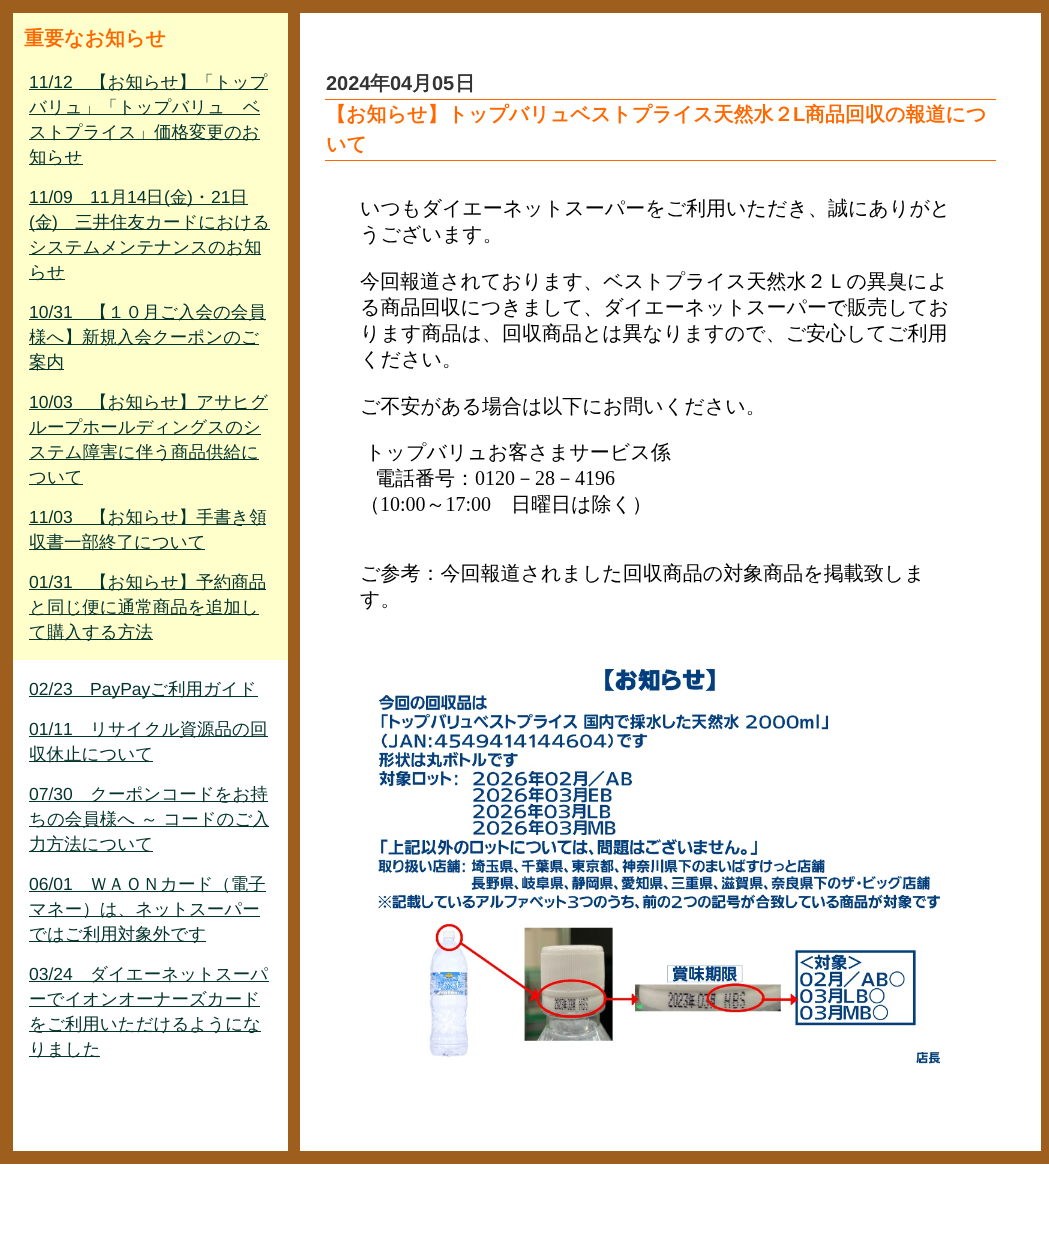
import math
import cairo

surface = cairo.ImageSurface(cairo.FORMAT_RGB24, 1049, 1252)
c = cairo.Context(surface)
options = cairo.FontOptions()
options.set_hint_metrics(cairo.HINT_METRICS_OFF)
options.set_hint_style(cairo.HINT_STYLE_NONE)
c.set_font_options(options)
c.set_miter_limit(4)
def C(code):
 c.set_source_rgb(*(v / 255 for v in bytes.fromhex(code[-6:])))
def F(family, size, italic, bold):
 c.select_font_face(family, cairo.FONT_SLANT_ITALIC if italic else cairo.FONT_SLANT_NORMAL, cairo.FONT_WEIGHT_BOLD if bold else cairo.FONT_WEIGHT_NORMAL)
 c.set_font_size(size)
def T(x, y, s):
 c.move_to(x, y)
 c.show_text(s)
def R(x, y, w, h):
 c.rectangle(x, y, w, h)
 c.fill()
def I(path, x, y, w, h):
 c.save()
 c.set_source_surface(cairo.ImageSurface.create_from_png(path), x, y)
 c.rectangle(x, y, w, h)
 c.fill()
 c.restore()
C('ffffff')
c.paint()
c.rectangle(6.5,6.5,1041,1151)
C('9e5e1e')
c.set_line_width(13)
c.stroke()
R(288,13,12,1138)
C('ffffcc')
R(13,13,275,647)
F('WenQuanYi Zen Hei',20,0,1)
C('ff6700')
T(24,45,'重要なお知らせ')
F('Liberation Sans',17.5,0,0)
C('03342c')
T(29,88,'11/12')
R(29,89,239,1)
F('WenQuanYi Zen Hei Medium',17.5,0,0)
T(90,88,'【お知らせ】「トップ')
R(29,114,231,1)
T(29,113,'バリュ」「トップバリュ　ベ')
R(29,139,231,1)
T(29,138,'ストプライス」価格変更のお')
R(29,164,54,1)
T(29,163,'知らせ')
F('Liberation Sans',17.5,0,0)
T(29,203,'11/09')
T(90,203,'11')
R(29,204,219,1)
F('WenQuanYi Zen Hei Medium',17.5,0,0)
T(110,203,'月')
F('Liberation Sans',17.5,0,0)
T(127,203,'14')
F('WenQuanYi Zen Hei Medium',17.5,0,0)
T(146,203,'日')
F('Liberation Sans',17.5,0,0)
T(164,203,'(')
F('WenQuanYi Zen Hei Medium',17.5,0,0)
T(170,203,'金')
F('Liberation Sans',17.5,0,0)
T(187,203,')')
F('WenQuanYi Zen Hei Medium',17.5,0,0)
T(193,203,'・')
F('Liberation Sans',17.5,0,0)
T(211,203,'21')
F('WenQuanYi Zen Hei Medium',17.5,0,0)
T(230,203,'日')
R(29,229,241,1)
F('Liberation Sans',17.5,0,0)
T(29,228,'(')
F('WenQuanYi Zen Hei Medium',17.5,0,0)
T(35,228,'金')
F('Liberation Sans',17.5,0,0)
T(52,228,')')
F('WenQuanYi Zen Hei Medium',17.5,0,0)
T(75,228,'三井住友カードにおける')
R(29,254,232,1)
T(29,253,'システムメンテナンスのお知')
R(29,279,36,1)
T(29,278,'らせ')
F('Liberation Sans',17.5,0,0)
T(29,318,'10/31')
R(29,319,237,1)
F('WenQuanYi Zen Hei Medium',17.5,0,0)
T(90,318,'【１０月ご入会の会員')
R(29,344,230,1)
T(29,343,'様へ】新規入会クーポンのご')
R(29,369,35,1)
T(29,368,'案内')
F('Liberation Sans',17.5,0,0)
T(29,408,'10/03')
R(29,409,239,1)
F('WenQuanYi Zen Hei Medium',17.5,0,0)
T(90,408,'【お知らせ】アサヒグ')
R(29,434,232,1)
T(29,433,'ループホールディングスのシ')
R(29,459,230,1)
T(29,458,'ステム障害に伴う商品供給に')
R(29,484,54,1)
T(29,483,'ついて')
F('Liberation Sans',17.5,0,0)
T(29,523,'11/03')
R(29,524,237,1)
F('WenQuanYi Zen Hei Medium',17.5,0,0)
T(90,523,'【お知らせ】手書き領')
R(29,549,176,1)
T(29,548,'収書一部終了について')
F('Liberation Sans',17.5,0,0)
T(29,588,'01/31')
R(29,589,237,1)
F('WenQuanYi Zen Hei Medium',17.5,0,0)
T(90,588,'【お知らせ】予約商品')
R(29,614,230,1)
T(29,613,'と同じ便に通常商品を追加し')
R(29,639,124,1)
T(29,638,'て購入する方法')
F('Liberation Sans',17.5,0,0)
T(29,695,'02/23')
R(29,696,229,1)
T(90,695,'PayPay')
F('WenQuanYi Zen Hei Medium',17.5,0,0)
T(150,695,'ご利用ガイド')
F('Liberation Sans',17.5,0,0)
T(29,735,'01/11')
R(29,736,239,1)
F('WenQuanYi Zen Hei Medium',17.5,0,0)
T(90,735,'リサイクル資源品の回')
R(29,761,124,1)
T(29,760,'収休止について')
F('Liberation Sans',17.5,0,0)
T(29,800,'07/30')
R(29,801,239,1)
F('WenQuanYi Zen Hei Medium',17.5,0,0)
T(90,800,'クーポンコードをお持')
R(29,826,240,1)
T(29,825,'ちの会員様へ ～ コードのご入')
R(29,851,124,1)
T(29,850,'力方法について')
F('Liberation Sans',17.5,0,0)
T(29,890,'06/01')
R(29,891,237,1)
F('WenQuanYi Zen Hei Medium',17.5,0,0)
T(90,890,'ＷＡＯＮカード（電子')
R(29,916,231,1)
T(29,915,'マネー）は、ネットスーパー')
R(29,941,177,1)
T(29,940,'ではご利用対象外です')
F('Liberation Sans',17.5,0,0)
T(29,980,'03/24')
R(29,981,240,1)
F('WenQuanYi Zen Hei Medium',17.5,0,0)
T(90,980,'ダイエーネットスーパ')
R(29,1006,231,1)
T(29,1005,'ーでイオンオーナーズカード')
R(29,1031,232,1)
T(29,1030,'をご利用いただけるようにな')
R(29,1056,71,1)
T(29,1055,'りました')
F('Liberation Sans',20,0,1)
C('333333')
T(326,90,'2024')
F('WenQuanYi Zen Hei',20,0,1)
T(370,90,'年')
F('Liberation Sans',20,0,1)
T(390,90,'04')
F('WenQuanYi Zen Hei',20,0,1)
T(412,90,'月')
F('Liberation Sans',20,0,1)
T(432,90,'05')
F('WenQuanYi Zen Hei',20,0,1)
T(455,90,'日')
C('ff6600')
R(325,99,671,1)
R(325,160,671,1)
C('ff6700')
T(326,121,'【お知らせ】トップバリュベストプライス天然水２')
F('Liberation Sans',20,0,1)
T(793,121,'L')
F('WenQuanYi Zen Hei',20,0,1)
T(805,121,'商品回収の報道につ')
T(326,151,'いて')
I('1.png',360,198,588,866)
surface.write_to_png('o.png')
